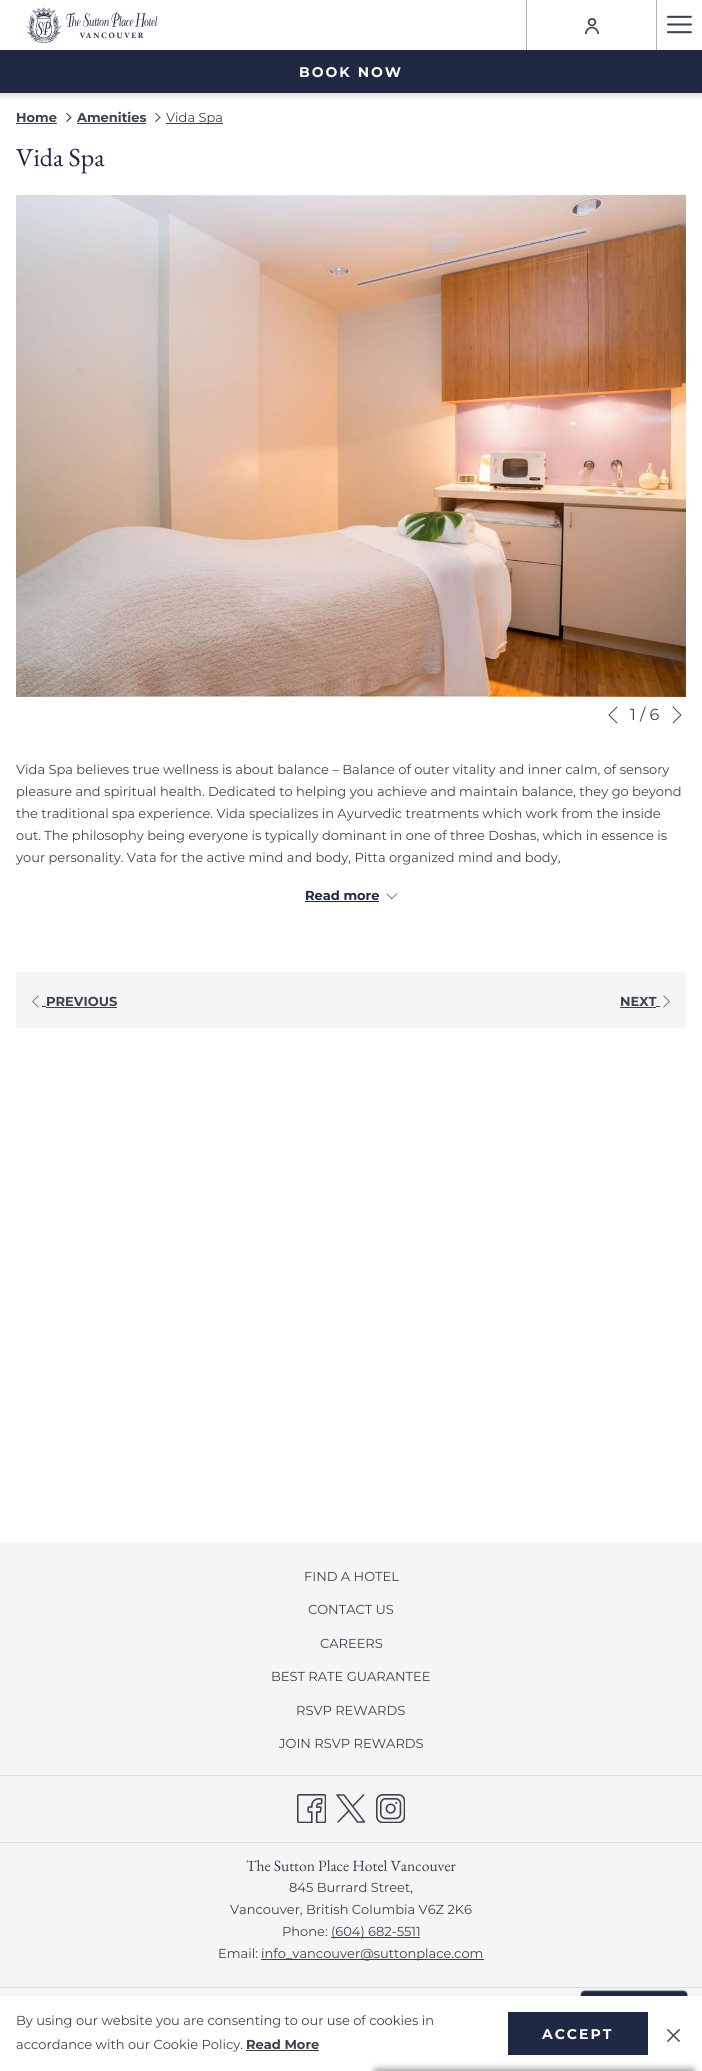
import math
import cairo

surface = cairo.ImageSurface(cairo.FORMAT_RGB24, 702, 2071)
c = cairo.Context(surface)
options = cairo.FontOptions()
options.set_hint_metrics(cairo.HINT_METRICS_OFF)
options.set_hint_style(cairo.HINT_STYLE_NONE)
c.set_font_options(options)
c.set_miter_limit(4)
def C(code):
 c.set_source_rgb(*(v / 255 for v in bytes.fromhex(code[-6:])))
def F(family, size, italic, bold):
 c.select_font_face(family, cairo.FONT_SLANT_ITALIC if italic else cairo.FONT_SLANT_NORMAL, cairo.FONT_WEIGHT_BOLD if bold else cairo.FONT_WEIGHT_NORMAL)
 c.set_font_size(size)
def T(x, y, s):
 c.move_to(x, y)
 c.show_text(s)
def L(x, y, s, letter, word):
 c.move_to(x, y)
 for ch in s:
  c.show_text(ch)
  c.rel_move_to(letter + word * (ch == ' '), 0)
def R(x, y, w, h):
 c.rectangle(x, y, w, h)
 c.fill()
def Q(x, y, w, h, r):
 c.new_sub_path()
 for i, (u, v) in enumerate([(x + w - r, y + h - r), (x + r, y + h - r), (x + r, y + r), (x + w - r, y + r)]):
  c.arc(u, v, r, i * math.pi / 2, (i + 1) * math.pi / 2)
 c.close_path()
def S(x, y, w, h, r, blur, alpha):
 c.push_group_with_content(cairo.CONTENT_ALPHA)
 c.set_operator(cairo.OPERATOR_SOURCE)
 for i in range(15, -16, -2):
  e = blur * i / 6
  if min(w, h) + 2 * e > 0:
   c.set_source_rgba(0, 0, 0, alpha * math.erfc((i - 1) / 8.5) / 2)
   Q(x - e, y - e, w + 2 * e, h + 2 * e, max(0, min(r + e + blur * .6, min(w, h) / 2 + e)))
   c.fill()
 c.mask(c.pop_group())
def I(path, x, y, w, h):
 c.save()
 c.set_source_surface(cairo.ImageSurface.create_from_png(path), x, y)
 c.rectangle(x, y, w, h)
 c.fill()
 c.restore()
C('ffffff')
c.paint()
I('1.png',26,7,132,36)
C('b3b3b3')
R(526,0,1,50)
I('2.png',585,18,14,16)
C('000000')
S(0,53,702,43,0,3,.15)
C('b3b3b3')
R(656,0,1,50)
I('3.png',667,15,25,19)
C('202944')
R(0,50,702,43)
F('Montserrat',14,0,1)
C('ffffff')
L(299,77,'BOOK NOW',2,0)
F('Montserrat',13,0,1)
C('3b424c')
T(16,122,'Home')
R(16,123,41,1)
c.new_path()
c.move_to(66,113.5)
c.line_to(67,113)
c.line_to(71.5,117.5)
c.line_to(70.5,118)
c.close_path()
c.fill()
c.new_path()
c.move_to(66,121.5)
c.line_to(70.5,116.5)
c.line_to(71.5,117.5)
c.line_to(67,122)
c.close_path()
c.fill()
T(77,122,'Amenities')
R(77,123,69,1)
c.new_path()
c.move_to(155,113.5)
c.line_to(156,113)
c.line_to(160.5,117.5)
c.line_to(160,118)
c.close_path()
c.fill()
c.new_path()
c.move_to(155,121.5)
c.line_to(160,116.5)
c.line_to(160.5,117.5)
c.line_to(156,122)
c.close_path()
c.fill()
R(166,123,57,1)
F('Montserrat',13,0,0)
T(166,122,'Vida Spa')
F('EB Garamond',26,0,0)
C('202944')
T(16,166,'Vida Spa')
I('4.png',16,195,670,502)
I('5.png',608,706,10,18)
F('Montserrat',16,0,0)
C('3b424c')
T(630,720,'1 / 6')
I('6.png',672,706,10,18)
F('Montserrat',13,0,0)
T(16,774,'Vida Spa believes true wellness is about balance – Balance of outer vitality and inner calm, of sensory')
T(16,796,'pleasure and spiritual health. Dedicated to helping you achieve and maintain balance, they go beyond')
T(16,818,'the traditional spa experience. Vida specializes in Ayurvedic treatments which work from the inside')
T(16,840,'out. The philosophy being everyone is typically dominant in one of three Doshas, which in essence is')
T(16,862,'your personality. Vata for the active mind and body, Pitta organized mind and body,')
F('Montserrat',13,0,1)
C('202944')
T(305,900,'Read more')
R(305,901,74,1)
I('7.png',386,893,11,6)
C('f5f5f6')
R(16,972,670,56)
I('8.png',32,995,7,13)
C('3b424c')
R(42,1006,4,1)
T(46,1006,'PREVIOUS')
R(46,1007,71,1)
T(620,1006,'NEXT')
R(620,1007,36,1)
I('9.png',663,995,7,13)
R(656,1006,4,1)
C('f5f5f6')
R(0,1543,702,453)
C('dddddd')
R(0,1775,702,1)
F('Montserrat',13,0,0)
C('3b424c')
T(304,1581,'FIND A HOTEL')
T(308,1614,'CONTACT US')
T(320,1648,'CAREERS')
T(271,1681,'BEST RATE GUARANTEE')
T(296,1715,'RSVP REWARDS')
T(279,1748,'JOIN RSVP REWARDS')
C('dddddd')
R(0,1842,702,1)
I('10.png',297,1794,29,29)
c.new_path()
c.move_to(357.5,1822)
c.line_to(337,1795)
c.line_to(344,1795)
c.line_to(364.5,1822)
c.close_path()
c.move_to(363.5,1795)
c.line_to(352.5,1806.5)
c.move_to(338,1822)
c.line_to(349,1810.5)
C('3b424c')
c.set_line_width(1.5)
c.set_line_cap(cairo.LINE_CAP_ROUND)
c.set_line_join(cairo.LINE_JOIN_ROUND)
c.stroke()
I('11.png',376,1794,29,29)
C('dddddd')
R(0,1987,702,1)
F('EB Garamond',15.6,0,0)
C('3b424c')
T(246,1871,'The Sutton Place Hotel Vancouver')
F('Montserrat',13,0,0)
T(289,1892,'845 Burrard Street,')
T(230,1914,'Vancouver, British Columbia V6Z 2K6')
T(282,1936,'Phone:')
R(331,1937,89,1)
T(331,1936,'(604) 682-5511')
T(218,1958,'Email:')
R(261,1959,223,1)
T(261,1958,'info_vancouver@suttonplace.com')
I('12.png',580,1990,108,6)
T(16,2025,'By using our website you are consenting to our use of cookies in')
T(16,2049,'accordance with our Cookie Policy.')
F('Montserrat',13,0,1)
T(246,2049,'Read More')
R(246,2050,73,1)
C('202944')
R(508,2012,140,43)
F('Montserrat',14,0,1)
C('ffffff')
L(542,2039,'ACCEPT',2,0)
I('13.png',667,2029,13,13)
C('808080')
S(376,2070,317,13,0,4,1)
surface.write_to_png('o.png')
